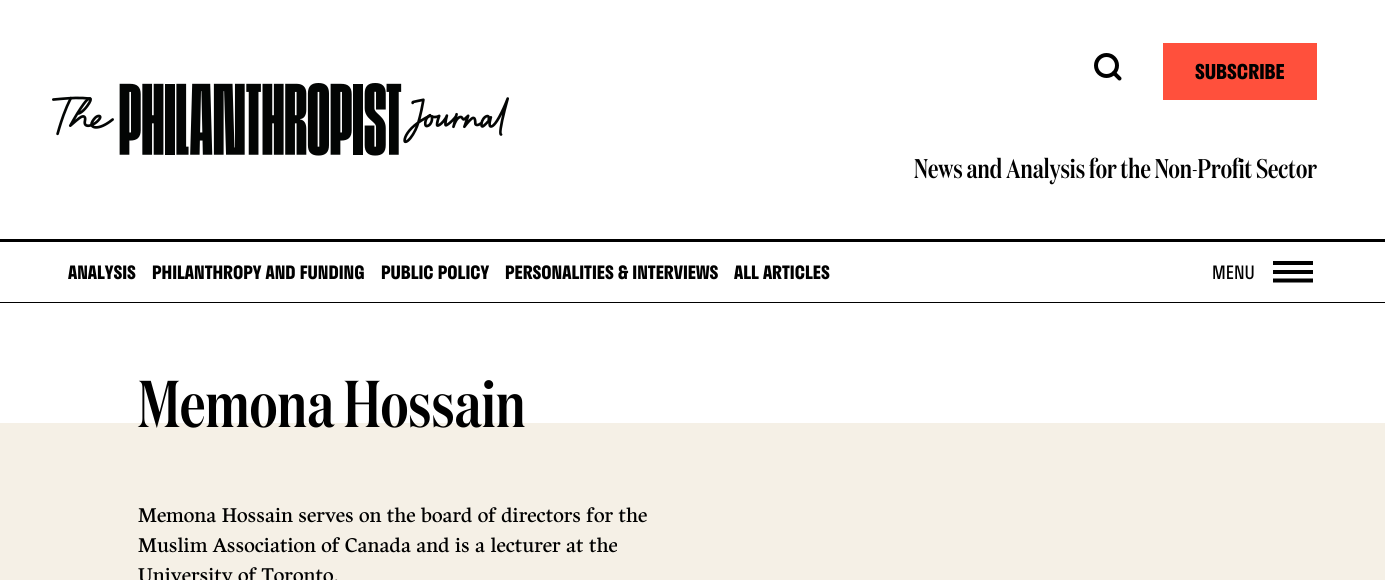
import math
import cairo

surface = cairo.ImageSurface(cairo.FORMAT_RGB24, 1385, 580)
c = cairo.Context(surface)
options = cairo.FontOptions()
options.set_hint_metrics(cairo.HINT_METRICS_OFF)
options.set_hint_style(cairo.HINT_STYLE_NONE)
c.set_font_options(options)
c.set_miter_limit(4)
def C(code):
 c.set_source_rgb(*(v / 255 for v in bytes.fromhex(code[-6:])))
def F(family, size, italic, bold):
 c.select_font_face(family, cairo.FONT_SLANT_ITALIC if italic else cairo.FONT_SLANT_NORMAL, cairo.FONT_WEIGHT_BOLD if bold else cairo.FONT_WEIGHT_NORMAL)
 c.set_font_size(size)
def T(x, y, s):
 c.move_to(x, y)
 c.show_text(s)
def R(x, y, w, h):
 c.rectangle(x, y, w, h)
 c.fill()
def I(path, x, y, w, h):
 c.save()
 c.set_source_surface(cairo.ImageSurface.create_from_png(path), x, y)
 c.rectangle(x, y, w, h)
 c.fill()
 c.restore()
C('ffffff')
c.paint()
I('1.png',52,83,457,73)
c.arc(1106.5,65.5,10.5,0,2 * math.pi)
C('000000')
c.set_line_width(4)
c.stroke()
c.new_path()
c.move_to(1119.5,78.5)
c.line_to(1114,73)
c.set_line_cap(cairo.LINE_CAP_ROUND)
c.set_line_join(cairo.LINE_JOIN_ROUND)
c.stroke()
C('ff503c')
R(1163,43,154,57)
F('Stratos',20,0,1)
C('000000')
T(1195,79,'SUBSCRIBE')
F('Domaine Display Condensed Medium',27,0,0)
T(914,178,'News and Analysis for the Non-Profit Sector')
R(0,239,1385,3)
R(0,302,1385,1)
F('Stratos',18,0,1)
T(68,279,'ANALYSIS')
T(152,279,'PHILANTHROPY AND FUNDING')
T(381,279,'PUBLIC POLICY')
T(505,279,'PERSONALITIES & INTERVIEWS')
T(734,279,'ALL ARTICLES')
F('Stratos',18,0,0)
T(1212,279,'MENU')
R(1273,261,40,4)
R(1273,270,40,4)
c.new_path()
c.move_to(1273,280.5)
c.line_to(1313,280.5)
c.set_line_cap(cairo.LINE_CAP_BUTT)
c.set_line_join(cairo.LINE_JOIN_MITER)
c.stroke()
C('f5f0e6')
R(0,423,1385,157)
F('Domaine Display Condensed Medium',66,0,0)
C('000000')
T(138,427,'Memona Hossain')
F('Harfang',20,0,0)
T(138,522,'Memona Hossain serves on the board of directors for the')
T(138,552,'Muslim Association of Canada and is a lecturer at the')
T(138,582,'University of Toronto.')
surface.write_to_png('o.png')
